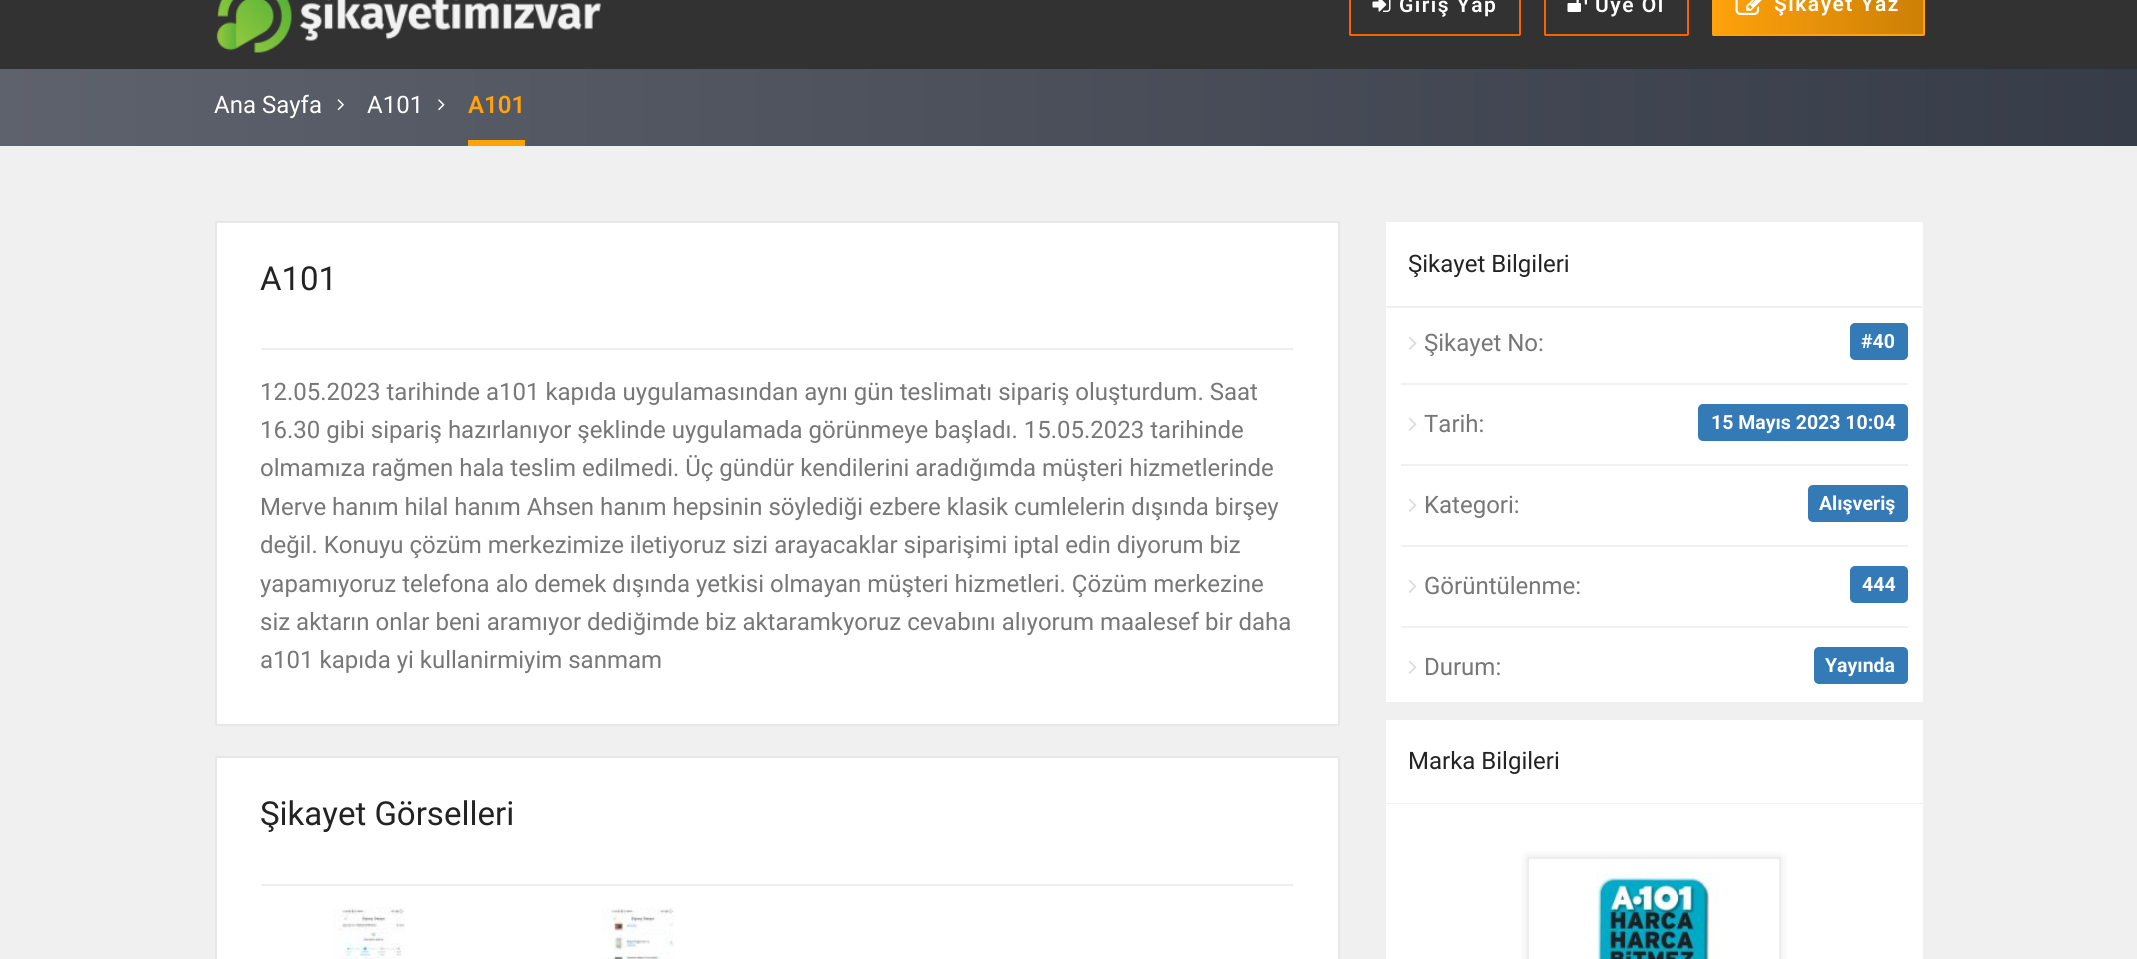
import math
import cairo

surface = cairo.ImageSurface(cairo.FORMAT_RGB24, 2137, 959)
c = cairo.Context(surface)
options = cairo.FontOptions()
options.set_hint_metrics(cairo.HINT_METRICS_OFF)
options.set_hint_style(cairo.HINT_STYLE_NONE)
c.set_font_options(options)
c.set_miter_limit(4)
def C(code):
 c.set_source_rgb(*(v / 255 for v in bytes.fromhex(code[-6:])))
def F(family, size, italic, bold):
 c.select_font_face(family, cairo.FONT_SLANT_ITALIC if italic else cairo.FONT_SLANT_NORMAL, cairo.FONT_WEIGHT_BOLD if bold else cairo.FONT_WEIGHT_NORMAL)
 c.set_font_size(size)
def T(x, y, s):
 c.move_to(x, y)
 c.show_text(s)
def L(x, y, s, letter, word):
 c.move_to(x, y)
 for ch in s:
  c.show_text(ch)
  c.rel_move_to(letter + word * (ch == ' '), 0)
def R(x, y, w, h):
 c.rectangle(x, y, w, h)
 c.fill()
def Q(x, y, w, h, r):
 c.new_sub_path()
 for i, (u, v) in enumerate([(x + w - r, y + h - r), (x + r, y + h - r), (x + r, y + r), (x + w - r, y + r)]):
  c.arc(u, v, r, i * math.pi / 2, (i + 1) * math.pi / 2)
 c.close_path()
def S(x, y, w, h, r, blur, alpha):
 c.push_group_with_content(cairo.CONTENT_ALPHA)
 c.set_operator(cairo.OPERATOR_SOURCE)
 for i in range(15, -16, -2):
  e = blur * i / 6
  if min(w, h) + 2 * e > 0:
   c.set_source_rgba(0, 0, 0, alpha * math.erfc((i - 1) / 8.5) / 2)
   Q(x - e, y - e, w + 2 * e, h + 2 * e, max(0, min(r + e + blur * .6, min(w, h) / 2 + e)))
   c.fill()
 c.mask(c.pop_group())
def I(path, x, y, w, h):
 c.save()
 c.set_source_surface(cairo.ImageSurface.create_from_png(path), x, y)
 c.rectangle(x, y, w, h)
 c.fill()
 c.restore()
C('323232')
c.paint()
I('1.png',216,0,386,53)
Q(1350,-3,170,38,.5)
C('f76206')
c.stroke()
I('2.png',1372,0,19,12)
F('Roboto SemiBold',21,0,0)
C('ffffff')
L(1399,12,'Giriş Yap',1.5,0)
Q(1545,-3,143,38,.5)
C('f76206')
c.stroke()
I('3.png',1567,0,20,12)
C('ffffff')
L(1595,12,'Üye Ol',1.5,0)
gradient = cairo.LinearGradient(1713,3.8,1923,3.7)
gradient.add_color_stop_rgba(0,1,0.635,0.047,1)
gradient.add_color_stop_rgba(1,0.8,0.502,0.02,1)
c.set_source(gradient)
R(1713,0,210,36)
Q(1713,-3,211,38,.5)
C('ffa20c')
c.stroke()
I('4.png',1735,0,27,15)
C('ffffff')
L(1774,11,'Şikayet Yaz',1.5,0)
gradient = cairo.LinearGradient(0,107,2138,107)
gradient.add_color_stop_rgba(0,0.369,0.384,0.424,1)
gradient.add_color_stop_rgba(1,0.212,0.235,0.282,1)
c.set_source(gradient)
R(0,69,2137,77)
F('Roboto',24,0,0)
C('ffffff')
T(214,113,'Ana Sayfa')
I('5.png',337,99,7,12)
T(367,113,'A101')
I('6.png',438,99,7,12)
C('ffa20c')
R(468,140,57,6)
F('Roboto SemiBold',24,0,0)
T(468,113,'A101')
C('f0f0f0')
R(0,146,2137,813)
C('ffffff')
Q(216,222,1123,503,.5)
c.fill_preserve()
C('e7e7e7')
c.stroke()
C('eeeeee')
R(261,348,1032,2)
F('Roboto',33,0,0)
C('232323')
T(260,290,'A101')
F('Roboto',24,0,0)
C('777777')
T(260,400,'12.05.2023 tarihinde a101 kapıda uygulamasından aynı gün teslimatı sipariş oluşturdum. Saat')
T(260,438,'16.30 gibi sipariş hazırlanıyor şeklinde uygulamada görünmeye başladı. 15.05.2023 tarihinde')
T(260,476,'olmamıza rağmen hala teslim edilmedi. Üç gündür kendilerini aradığımda müşteri hizmetlerinde')
T(260,515,'Merve hanım hilal hanım Ahsen hanım hepsinin söylediği ezbere klasik cumlelerin dışında birşey')
T(260,553,'değil. Konuyu çözüm merkezimize iletiyoruz sizi arayacaklar siparişimi iptal edin diyorum biz')
T(260,592,'yapamıyoruz telefona alo demek dışında yetkisi olmayan müşteri hizmetleri. Çözüm merkezine')
T(260,630,'siz aktarın onlar beni aramıyor dediğimde biz aktaramkyoruz cevabını alıyorum maalesef bir daha')
T(260,668,'a101 kapıda yi kullanirmiyim sanmam')
C('ffffff')
Q(216,757,1123,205,.5)
c.fill_preserve()
C('e7e7e7')
c.stroke()
C('eeeeee')
R(261,884,1032,2)
F('Roboto',33,0,0)
C('232323')
T(260,825,'Şikayet Görselleri')
I('7.png',333,907,72,52)
I('8.png',602,907,72,52)
C('ffffff')
R(1386,222,537,84)
F('Roboto',24,0,0)
C('232323')
T(1408,272,'Şikayet Bilgileri')
C('ffffff')
R(1386,308,537,394)
C('f1f1f1')
R(1401,383,507,2)
I('9.png',1408,336,9,14)
C('777777')
T(1424,351,'Şikayet No:')
C('337ab7')
Q(1850,323,58,37,5)
c.fill()
F('Roboto',19.5,0,1)
C('ffffff')
T(1861,348,'#40')
C('f1f1f1')
R(1401,464,507,2)
I('9.png',1408,417,9,14)
F('Roboto',24,0,0)
C('777777')
T(1424,432,'Tarih:')
C('337ab7')
Q(1698,404,210,37,5)
c.fill()
F('Roboto',19.5,0,1)
C('ffffff')
T(1711,429,'15 Mayıs 2023 10:04')
C('f1f1f1')
R(1401,545,507,2)
I('9.png',1408,498,9,14)
F('Roboto',24,0,0)
C('777777')
T(1424,513,'Kategori:')
C('337ab7')
Q(1808,485,100,37,5)
c.fill()
F('Roboto',19.5,0,1)
C('ffffff')
T(1819,510,'Alışveriş')
C('f1f1f1')
R(1401,626,507,2)
I('9.png',1408,579,9,14)
F('Roboto',24,0,0)
C('777777')
T(1424,594,'Görüntülenme:')
C('337ab7')
Q(1850,566,58,37,5)
c.fill()
F('Roboto',19.5,0,1)
C('ffffff')
T(1862,591,'444')
I('9.png',1408,660,9,14)
F('Roboto',24,0,0)
C('777777')
T(1424,675,'Durum:')
C('337ab7')
Q(1814,647,94,37,5)
c.fill()
F('Roboto',19.5,0,1)
C('ffffff')
T(1825,672,'Yayında')
R(1386,720,537,83)
F('Roboto',24,0,0)
C('232323')
T(1408,769,'Marka Bilgileri')
C('ffffff')
R(1386,804,537,155)
c.save()
c.set_fill_rule(cairo.FILL_RULE_EVEN_ODD)
c.new_path()
c.move_to(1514,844)
c.line_to(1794,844)
c.line_to(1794,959)
c.line_to(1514,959)
c.close_path()
c.move_to(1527,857)
c.line_to(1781,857)
c.line_to(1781,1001)
c.line_to(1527,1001)
c.close_path()
c.clip()
C('000000')
S(1527,857,254,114,0,4,.1)
c.restore()
c.rectangle(1528,858,252,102)
C('eeeeee')
c.stroke()
I('10.png',1596,873,124,86)
surface.write_to_png('o.png')
